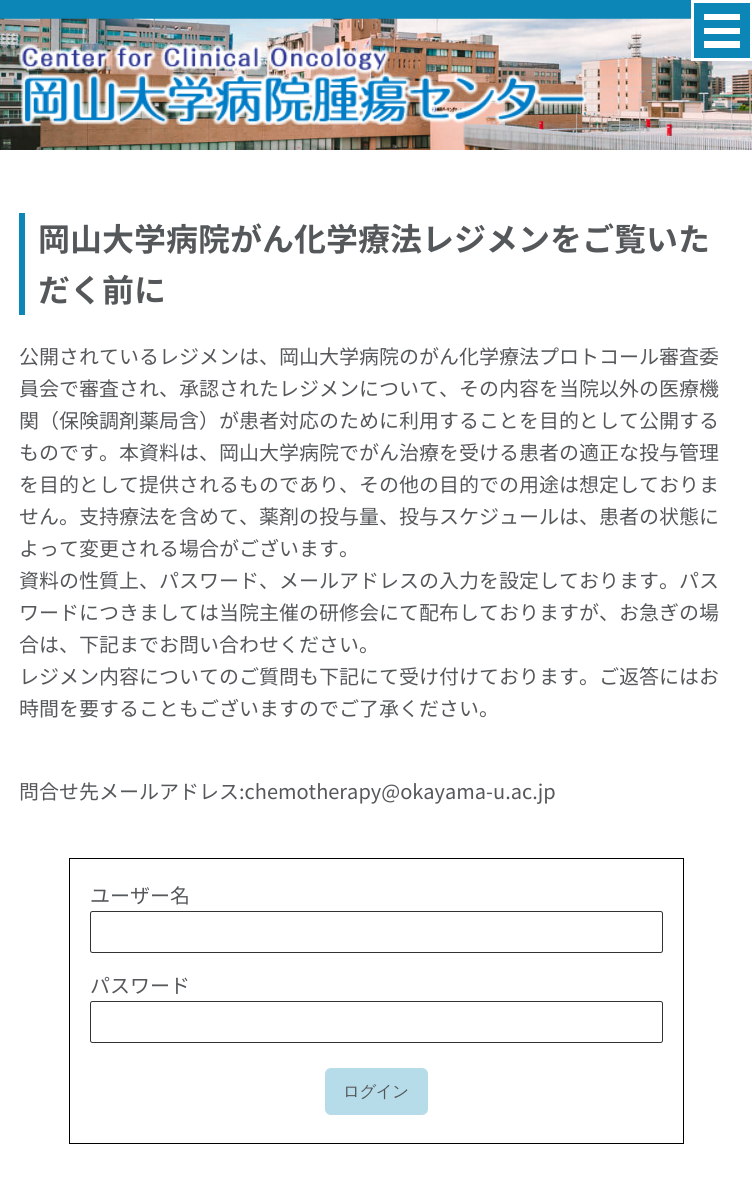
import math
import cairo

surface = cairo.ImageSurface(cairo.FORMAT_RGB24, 752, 1177)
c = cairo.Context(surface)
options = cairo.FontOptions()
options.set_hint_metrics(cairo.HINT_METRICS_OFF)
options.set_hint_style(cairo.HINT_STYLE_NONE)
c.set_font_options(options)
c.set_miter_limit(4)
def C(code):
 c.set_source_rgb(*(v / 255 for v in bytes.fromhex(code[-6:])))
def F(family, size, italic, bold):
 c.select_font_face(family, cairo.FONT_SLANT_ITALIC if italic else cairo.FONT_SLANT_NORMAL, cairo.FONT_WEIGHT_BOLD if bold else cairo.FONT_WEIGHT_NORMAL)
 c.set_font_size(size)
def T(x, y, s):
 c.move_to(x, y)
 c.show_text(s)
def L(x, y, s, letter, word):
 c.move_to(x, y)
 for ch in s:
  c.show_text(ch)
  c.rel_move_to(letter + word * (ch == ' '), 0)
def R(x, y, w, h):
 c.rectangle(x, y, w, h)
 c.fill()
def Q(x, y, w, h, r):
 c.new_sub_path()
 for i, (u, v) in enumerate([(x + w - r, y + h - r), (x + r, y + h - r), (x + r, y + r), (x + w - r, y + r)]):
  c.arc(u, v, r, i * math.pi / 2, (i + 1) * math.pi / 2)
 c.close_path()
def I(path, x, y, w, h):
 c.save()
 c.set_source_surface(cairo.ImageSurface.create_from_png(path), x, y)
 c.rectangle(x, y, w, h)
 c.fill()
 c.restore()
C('ffffff')
c.paint()
C('0c86b6')
R(0,0,691,19)
I('1.png',0,18,752,132)
I('2.png',18,43,570,82)
c.rectangle(692.5,1.5,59,58)
c.fill_preserve()
C('ffffff')
c.set_line_width(3)
c.stroke()
R(704,14,36,6)
R(704,41,36,7)
R(704,28,36,6)
C('0c86b6')
R(19,213,6,102)
F('Noto Sans JP',32,0,1)
C('55585a')
T(38,251,'岡山大学病院がん化学療法レジメンをご覧いた')
T(38,302,'だく前に')
F('Noto Sans JP',20,0,0)
T(19,364,'公開されているレジメンは、岡山大学病院のがん化学療法プロトコール審査委')
T(19,396,'員会で審査され、承認されたレジメンについて、その内容を当院以外の医療機')
T(19,428,'関（保険調剤薬局含）が患者対応のために利用することを目的として公開する')
T(19,460,'ものです。本資料は、岡山大学病院でがん治療を受ける患者の適正な投与管理')
T(19,492,'を目的として提供されるものであり、その他の目的での用途は想定しておりま')
T(19,524,'せん。支持療法を含めて、薬剤の投与量、投与スケジュールは、患者の状態に')
T(19,556,'よって変更される場合がございます。')
T(19,588,'資料の性質上、パスワード、メールアドレスの入力を設定しております。パス')
T(19,620,'ワードにつきましては当院主催の研修会にて配布しておりますが、お急ぎの場')
T(19,652,'合は、下記までお問い合わせください。')
T(19,684,'レジメン内容についてのご質問も下記にて受け付けております。ご返答にはお')
T(19,716,'時間を要することもございますのでご了承ください。')
T(19,799,'問合せ先メールアドレス:chemotherapy@okayama-u.ac.jp')
c.rectangle(69.5,858.5,614,285)
C('000000')
c.set_line_width(1)
c.stroke()
C('55585a')
T(90,903,'ユーザー名')
Q(90.5,911.5,572,41,2)
C('333333')
c.stroke()
C('55585a')
T(90,993,'パスワード')
Q(90.5,1001.5,572,41,2)
C('333333')
c.stroke()
C('b6dbe9')
Q(325,1068,103,47,6)
c.fill()
F('WenQuanYi Zen Hei Medium',16.5,0,0)
C('55585a')
L(343,1097,'ログイン',-.5,0)
surface.write_to_png('o.png')
